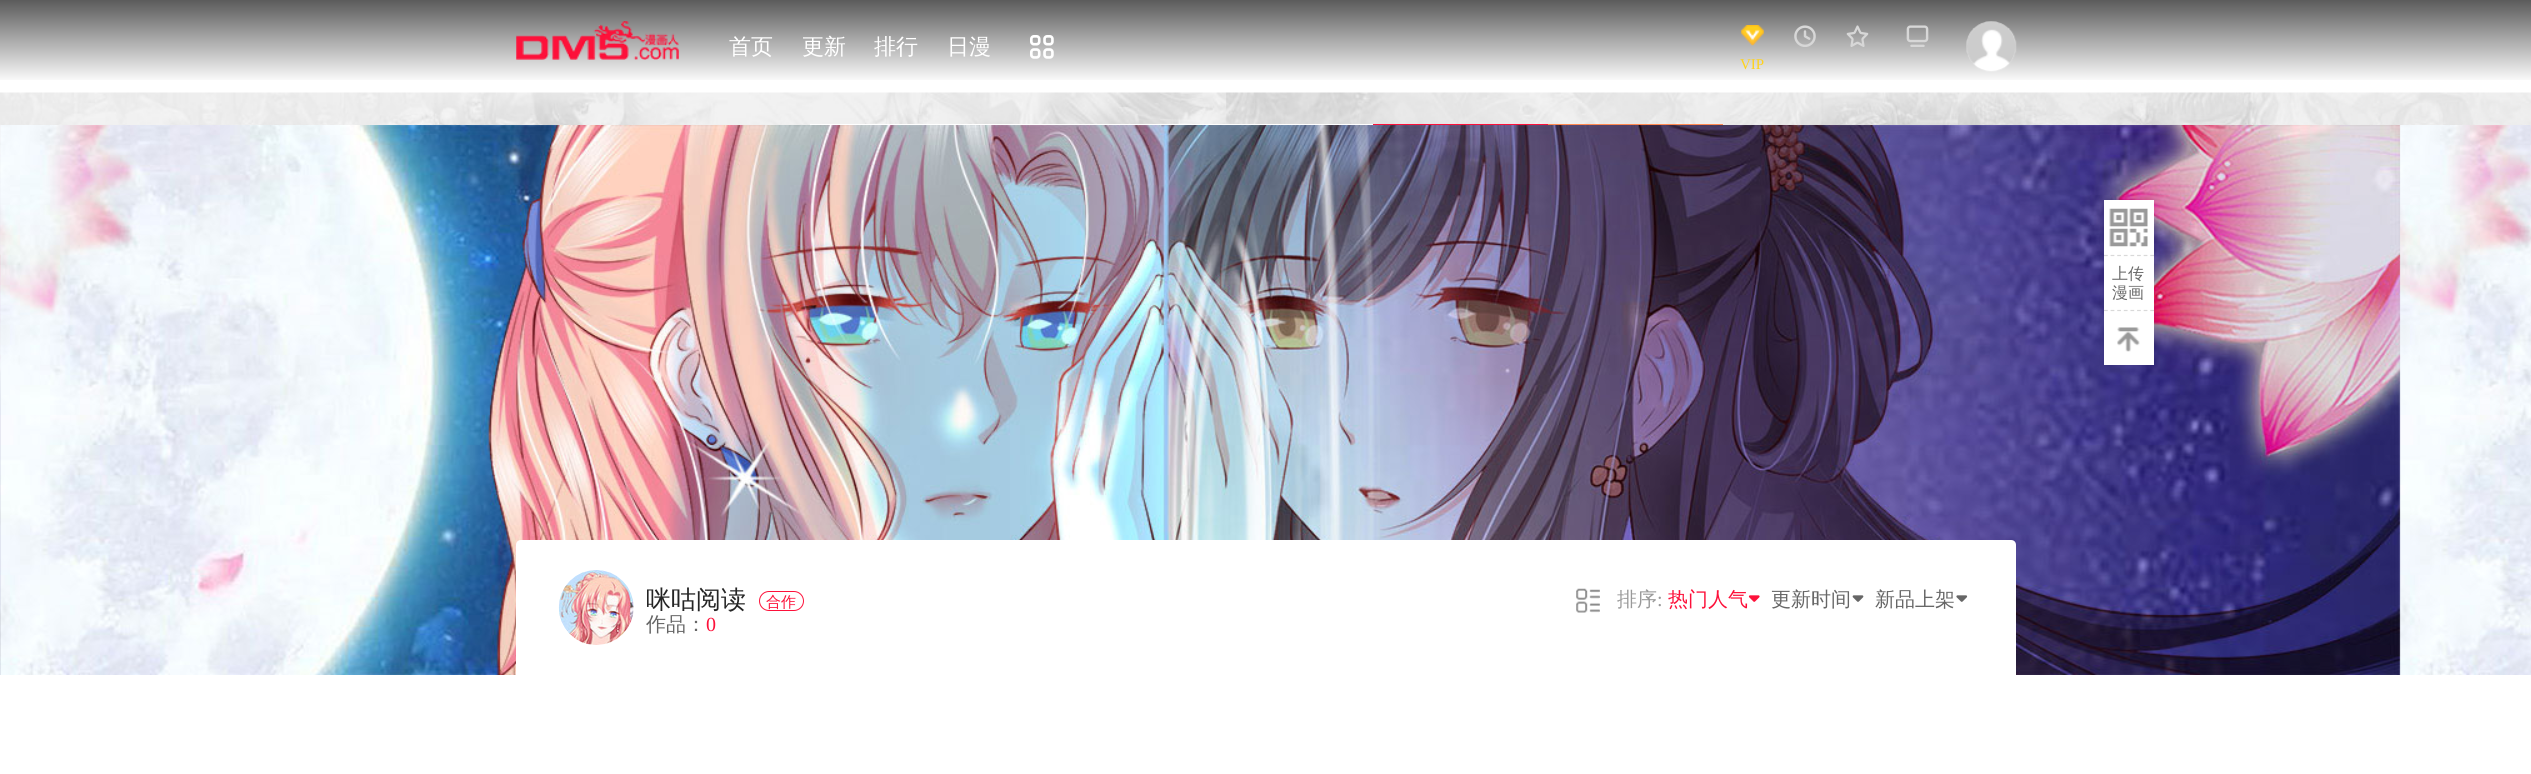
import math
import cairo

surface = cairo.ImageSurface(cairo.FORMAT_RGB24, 2531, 774)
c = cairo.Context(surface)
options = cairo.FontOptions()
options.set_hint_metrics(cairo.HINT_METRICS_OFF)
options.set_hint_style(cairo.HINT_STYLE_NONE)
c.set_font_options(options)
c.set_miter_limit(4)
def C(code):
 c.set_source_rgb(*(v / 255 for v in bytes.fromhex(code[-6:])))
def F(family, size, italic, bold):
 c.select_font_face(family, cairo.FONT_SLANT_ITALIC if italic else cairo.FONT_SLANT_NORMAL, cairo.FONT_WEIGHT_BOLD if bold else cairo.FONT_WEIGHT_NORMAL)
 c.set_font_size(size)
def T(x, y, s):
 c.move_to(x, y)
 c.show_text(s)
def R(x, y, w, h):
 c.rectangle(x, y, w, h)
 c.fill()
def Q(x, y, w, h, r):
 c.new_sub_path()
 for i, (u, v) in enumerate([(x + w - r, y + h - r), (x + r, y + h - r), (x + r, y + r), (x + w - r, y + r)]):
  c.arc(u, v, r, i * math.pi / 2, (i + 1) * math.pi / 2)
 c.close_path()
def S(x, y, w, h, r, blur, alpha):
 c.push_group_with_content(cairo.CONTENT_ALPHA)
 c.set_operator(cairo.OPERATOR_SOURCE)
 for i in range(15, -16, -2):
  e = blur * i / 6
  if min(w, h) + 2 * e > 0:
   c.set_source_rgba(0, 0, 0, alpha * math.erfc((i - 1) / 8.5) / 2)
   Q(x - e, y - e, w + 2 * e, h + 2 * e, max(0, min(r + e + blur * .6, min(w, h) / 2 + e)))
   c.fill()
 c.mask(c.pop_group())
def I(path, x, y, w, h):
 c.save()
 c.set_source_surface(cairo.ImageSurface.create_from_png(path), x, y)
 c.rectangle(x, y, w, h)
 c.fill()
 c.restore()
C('ffffff')
c.paint()
gradient = cairo.LinearGradient(1266,-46,1266,93)
gradient.add_color_stop_rgba(0,0,0,0,1)
gradient.add_color_stop_rgba(.93,0,0,0,0)
c.set_source(gradient)
R(0,0,2531,80)
I('1.png',516,21,163,39)
F('WenQuanYi Zen Hei Medium',22,0,0)
C('ffffff')
T(729,54,'首页')
T(802,54,'更新')
T(874,54,'排行')
T(947,54,'日漫')
I('2.png',1030,35,24,24)
I('3.png',1966,21,51,51)
I('4.png',1794,25,22,22)
I('5.png',1846,25,23,22)
I('6.png',1906,25,23,22)
I('7.png',1741,25,23,21)
F('Liberation Serif',15,0,0)
C('ffd21a')
T(1740,69,'VIP')
I('8.png',0,92,2531,33)
C('ffffff')
R(810,124,563,1)
C('fd113a')
R(1373,124,175,1)
C('ff8950')
R(1548,124,175,1)
I('11.png',0,125,2531,550)
C('000000')
S(2104,200,50,165,0,4,.1)
C('ffffff')
R(2104,200,50,165)
I('9.png',2109,208,39,39)
c.new_path()
c.move_to(2104,255.5)
c.line_to(2154,255.5)
C('d9d9d9')
c.set_line_width(1.2)
c.set_dash([3.75,2.86])
c.stroke()
F('WenQuanYi Zen Hei Medium',16,0,0)
C('666666')
T(2112,279,'上传')
T(2112,298,'漫画')
c.new_path()
c.move_to(2104,310.5)
c.line_to(2154,310.5)
C('d9d9d9')
c.stroke()
I('10.png',2117,327,23,25)
C('ffffff')
c.new_path()
c.move_to(521,540)
c.line_to(2011,540)
c.curve_to(2014,540,2016,542,2016,545)
c.line_to(2016,675)
c.line_to(516,675)
c.line_to(516,545)
c.curve_to(516,542,518,540,521,540)
c.close_path()
c.fill()
I('12.png',558,570,76,75)
F('WenQuanYi Zen Hei Medium',25,0,0)
C('252525')
T(646,608,'咪咕阅读')
Q(759.5,591.5,44,19,9.5)
C('fd113a')
c.set_line_width(1)
c.set_dash([])
c.stroke()
F('WenQuanYi Zen Hei Medium',15,0,0)
T(766,607,'合作')
F('WenQuanYi Zen Hei Medium',20,0,0)
C('666666')
T(646,631,'作品：')
F('Liberation Serif',20,0,0)
C('fd113a')
T(706,631,'0')
I('13.png',1576,588,24,25)
F('WenQuanYi Zen Hei Medium',20,0,0)
C('999999')
T(1617,606,'排序')
F('Liberation Serif',20,0,0)
T(1657,606,':')
F('WenQuanYi Zen Hei Medium',20,0,0)
C('fd113a')
T(1668,606,'热门人气')
I('14.png',1748,595,12,7)
C('666666')
T(1771,606,'更新时间')
I('15.png',1852,595,12,7)
T(1875,606,'新品上架')
I('16.png',1956,595,12,7)
surface.write_to_png('o.png')
